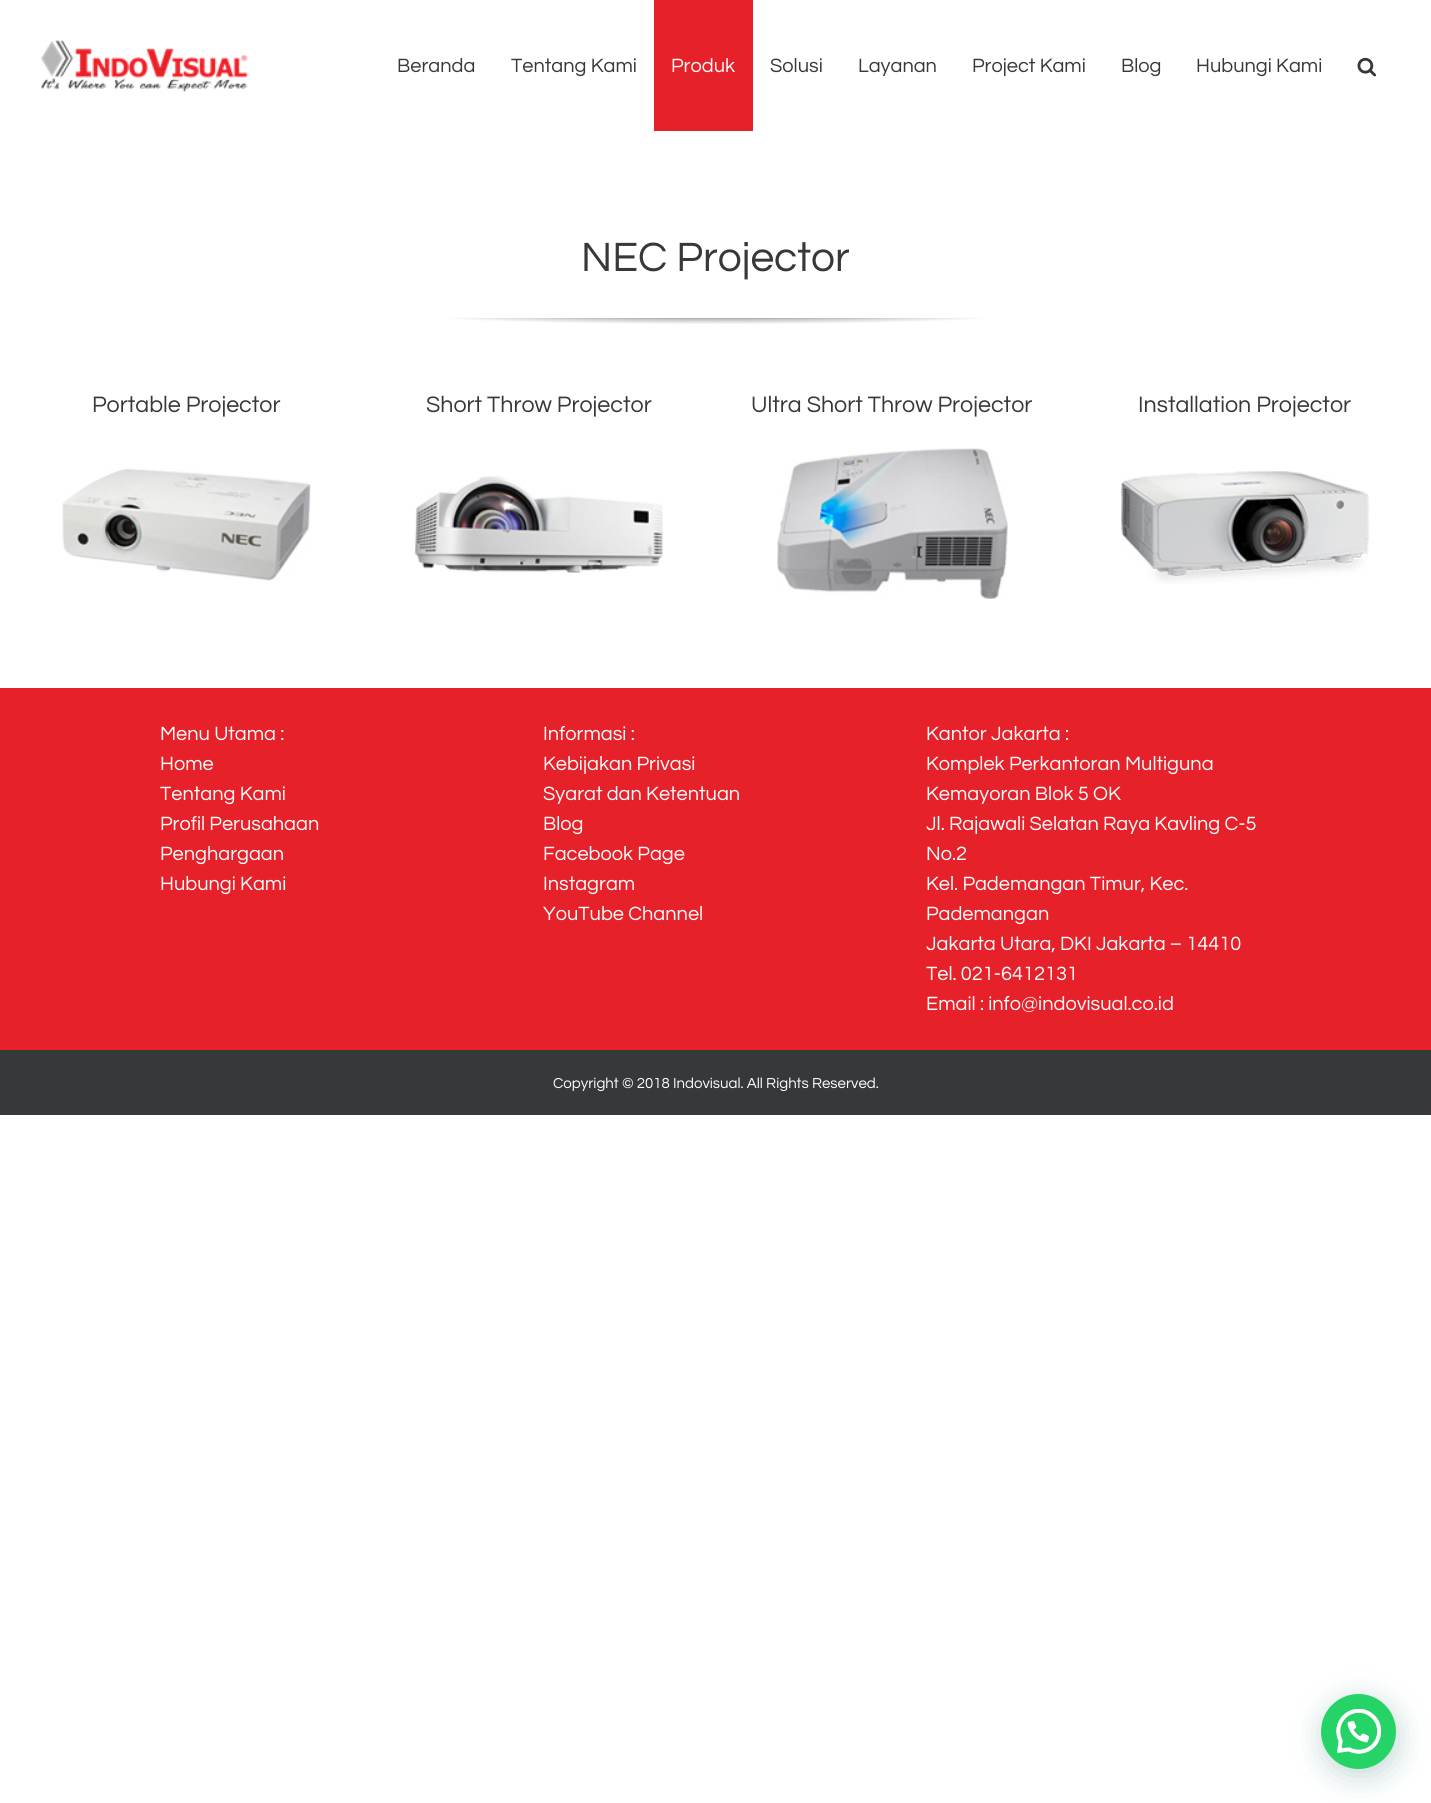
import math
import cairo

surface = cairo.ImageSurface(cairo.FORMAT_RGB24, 1431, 1803)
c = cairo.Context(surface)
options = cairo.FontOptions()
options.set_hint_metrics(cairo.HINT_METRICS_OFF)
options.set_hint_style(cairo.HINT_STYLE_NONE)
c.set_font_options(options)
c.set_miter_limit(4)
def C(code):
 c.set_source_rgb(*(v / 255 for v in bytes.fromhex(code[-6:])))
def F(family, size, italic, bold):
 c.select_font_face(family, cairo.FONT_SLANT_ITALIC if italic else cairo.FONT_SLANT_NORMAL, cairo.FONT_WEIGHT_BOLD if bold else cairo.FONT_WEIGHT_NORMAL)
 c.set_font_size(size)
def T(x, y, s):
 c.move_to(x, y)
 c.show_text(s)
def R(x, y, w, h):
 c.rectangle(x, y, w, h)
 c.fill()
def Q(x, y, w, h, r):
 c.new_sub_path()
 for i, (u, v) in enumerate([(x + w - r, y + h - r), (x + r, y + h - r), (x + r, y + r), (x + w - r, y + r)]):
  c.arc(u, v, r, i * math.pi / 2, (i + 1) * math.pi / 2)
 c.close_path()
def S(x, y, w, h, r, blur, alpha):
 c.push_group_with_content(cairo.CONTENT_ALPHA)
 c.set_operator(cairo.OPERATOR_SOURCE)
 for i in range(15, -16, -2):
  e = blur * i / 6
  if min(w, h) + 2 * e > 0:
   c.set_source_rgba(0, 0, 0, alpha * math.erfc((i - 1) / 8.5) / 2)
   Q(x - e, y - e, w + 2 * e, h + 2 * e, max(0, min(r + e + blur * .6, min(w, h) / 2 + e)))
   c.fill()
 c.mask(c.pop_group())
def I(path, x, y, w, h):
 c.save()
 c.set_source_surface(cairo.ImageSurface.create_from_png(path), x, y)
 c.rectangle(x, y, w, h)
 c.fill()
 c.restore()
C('ffffff')
c.paint()
I('1.png',41,40,207,52)
F('Questrial',20,0,0)
C('363839')
T(397,72,'Beranda')
T(511,72,'Tentang Kami')
C('e62129')
R(654,0,99,131)
C('ffffff')
T(671,72,'Produk')
C('363839')
T(770,72,'Solusi')
T(858,72,'Layanan')
T(972,72,'Project Kami')
T(1121,72,'Blog')
T(1196,72,'Hubungi Kami')
I('2.png',1357,57,19,20)
F('Questrial',42.5,0,0)
T(581,271,'NEC Projector')
gradient = cairo.RadialGradient(0,0,0,0,0,1)
gradient.set_matrix(cairo.Matrix(1 / 480, 0, 0, 1 / 2.7, -1 * 716 / 480, -1 * 317 / 2.7))
gradient.add_color_stop_rgba(0,0.878,0.871,0.871,1)
gradient.add_color_stop_rgba(.8,1,1,1,1)
c.set_source(gradient)
R(483,318,466,1)
gradient = cairo.RadialGradient(0,0,0,0,0,1)
gradient.set_matrix(cairo.Matrix(1 / 480, 0, 0, 1 / 16, -1 * 716 / 480, -1 * 314 / 16))
gradient.add_color_stop_rgba(0,0,0,0,.5)
gradient.add_color_stop_rgba(.65,0,0,0,0)
c.set_source(gradient)
R(451,318,530,6)
F('Questrial',23.25,0,0)
C('363839')
T(92,412,'Portable Projector')
I('3.png',62,468,249,113)
T(426,412,'Short Throw Projector')
I('4.png',414,476,249,97)
T(751,412,'Ultra Short Throw Projector')
I('5.png',777,448,231,151)
T(1138,412,'Installation Projector')
I('6.png',1121,471,248,113)
C('e62129')
R(0,688,1431,362)
F('Questrial',20,0,0)
C('ffffff')
T(160,740,'Menu Utama :')
T(160,770,'Home')
T(160,800,'Tentang Kami')
T(160,830,'Profil Perusahaan')
T(160,860,'Penghargaan')
T(160,890,'Hubungi Kami')
T(543,740,'Informasi :')
T(543,770,'Kebijakan Privasi')
T(543,800,'Syarat dan Ketentuan')
T(543,830,'Blog')
T(543,860,'Facebook Page')
T(543,890,'Instagram')
T(543,920,'YouTube Channel')
T(926,740,'Kantor Jakarta :')
T(926,770,'Komplek Perkantoran Multiguna')
T(926,800,'Kemayoran Blok 5 OK')
T(926,830,'Jl. Rajawali Selatan Raya Kavling C-5')
T(926,860,'No.2')
T(926,890,'Kel. Pademangan Timur, Kec.')
T(926,920,'Pademangan')
T(926,950,'Jakarta Utara, DKI Jakarta – 14410')
T(926,980,'Tel. 021-6412131')
T(926,1010,'Email : info@indovisual.co.id')
C('363839')
R(0,1050,1431,65)
F('Questrial',15,0,0)
C('ffffff')
T(553,1088,'Copyright © 2018 Indovisual. All Rights Reserved.')
C('075e54')
S(1323,1701,75,75,37.5,15,.24)
C('25d366')
c.arc(1358.5,1731.5,37.5,0,2 * math.pi)
c.fill()
I('7.png',1336,1709,45,45)
surface.write_to_png('o.png')
